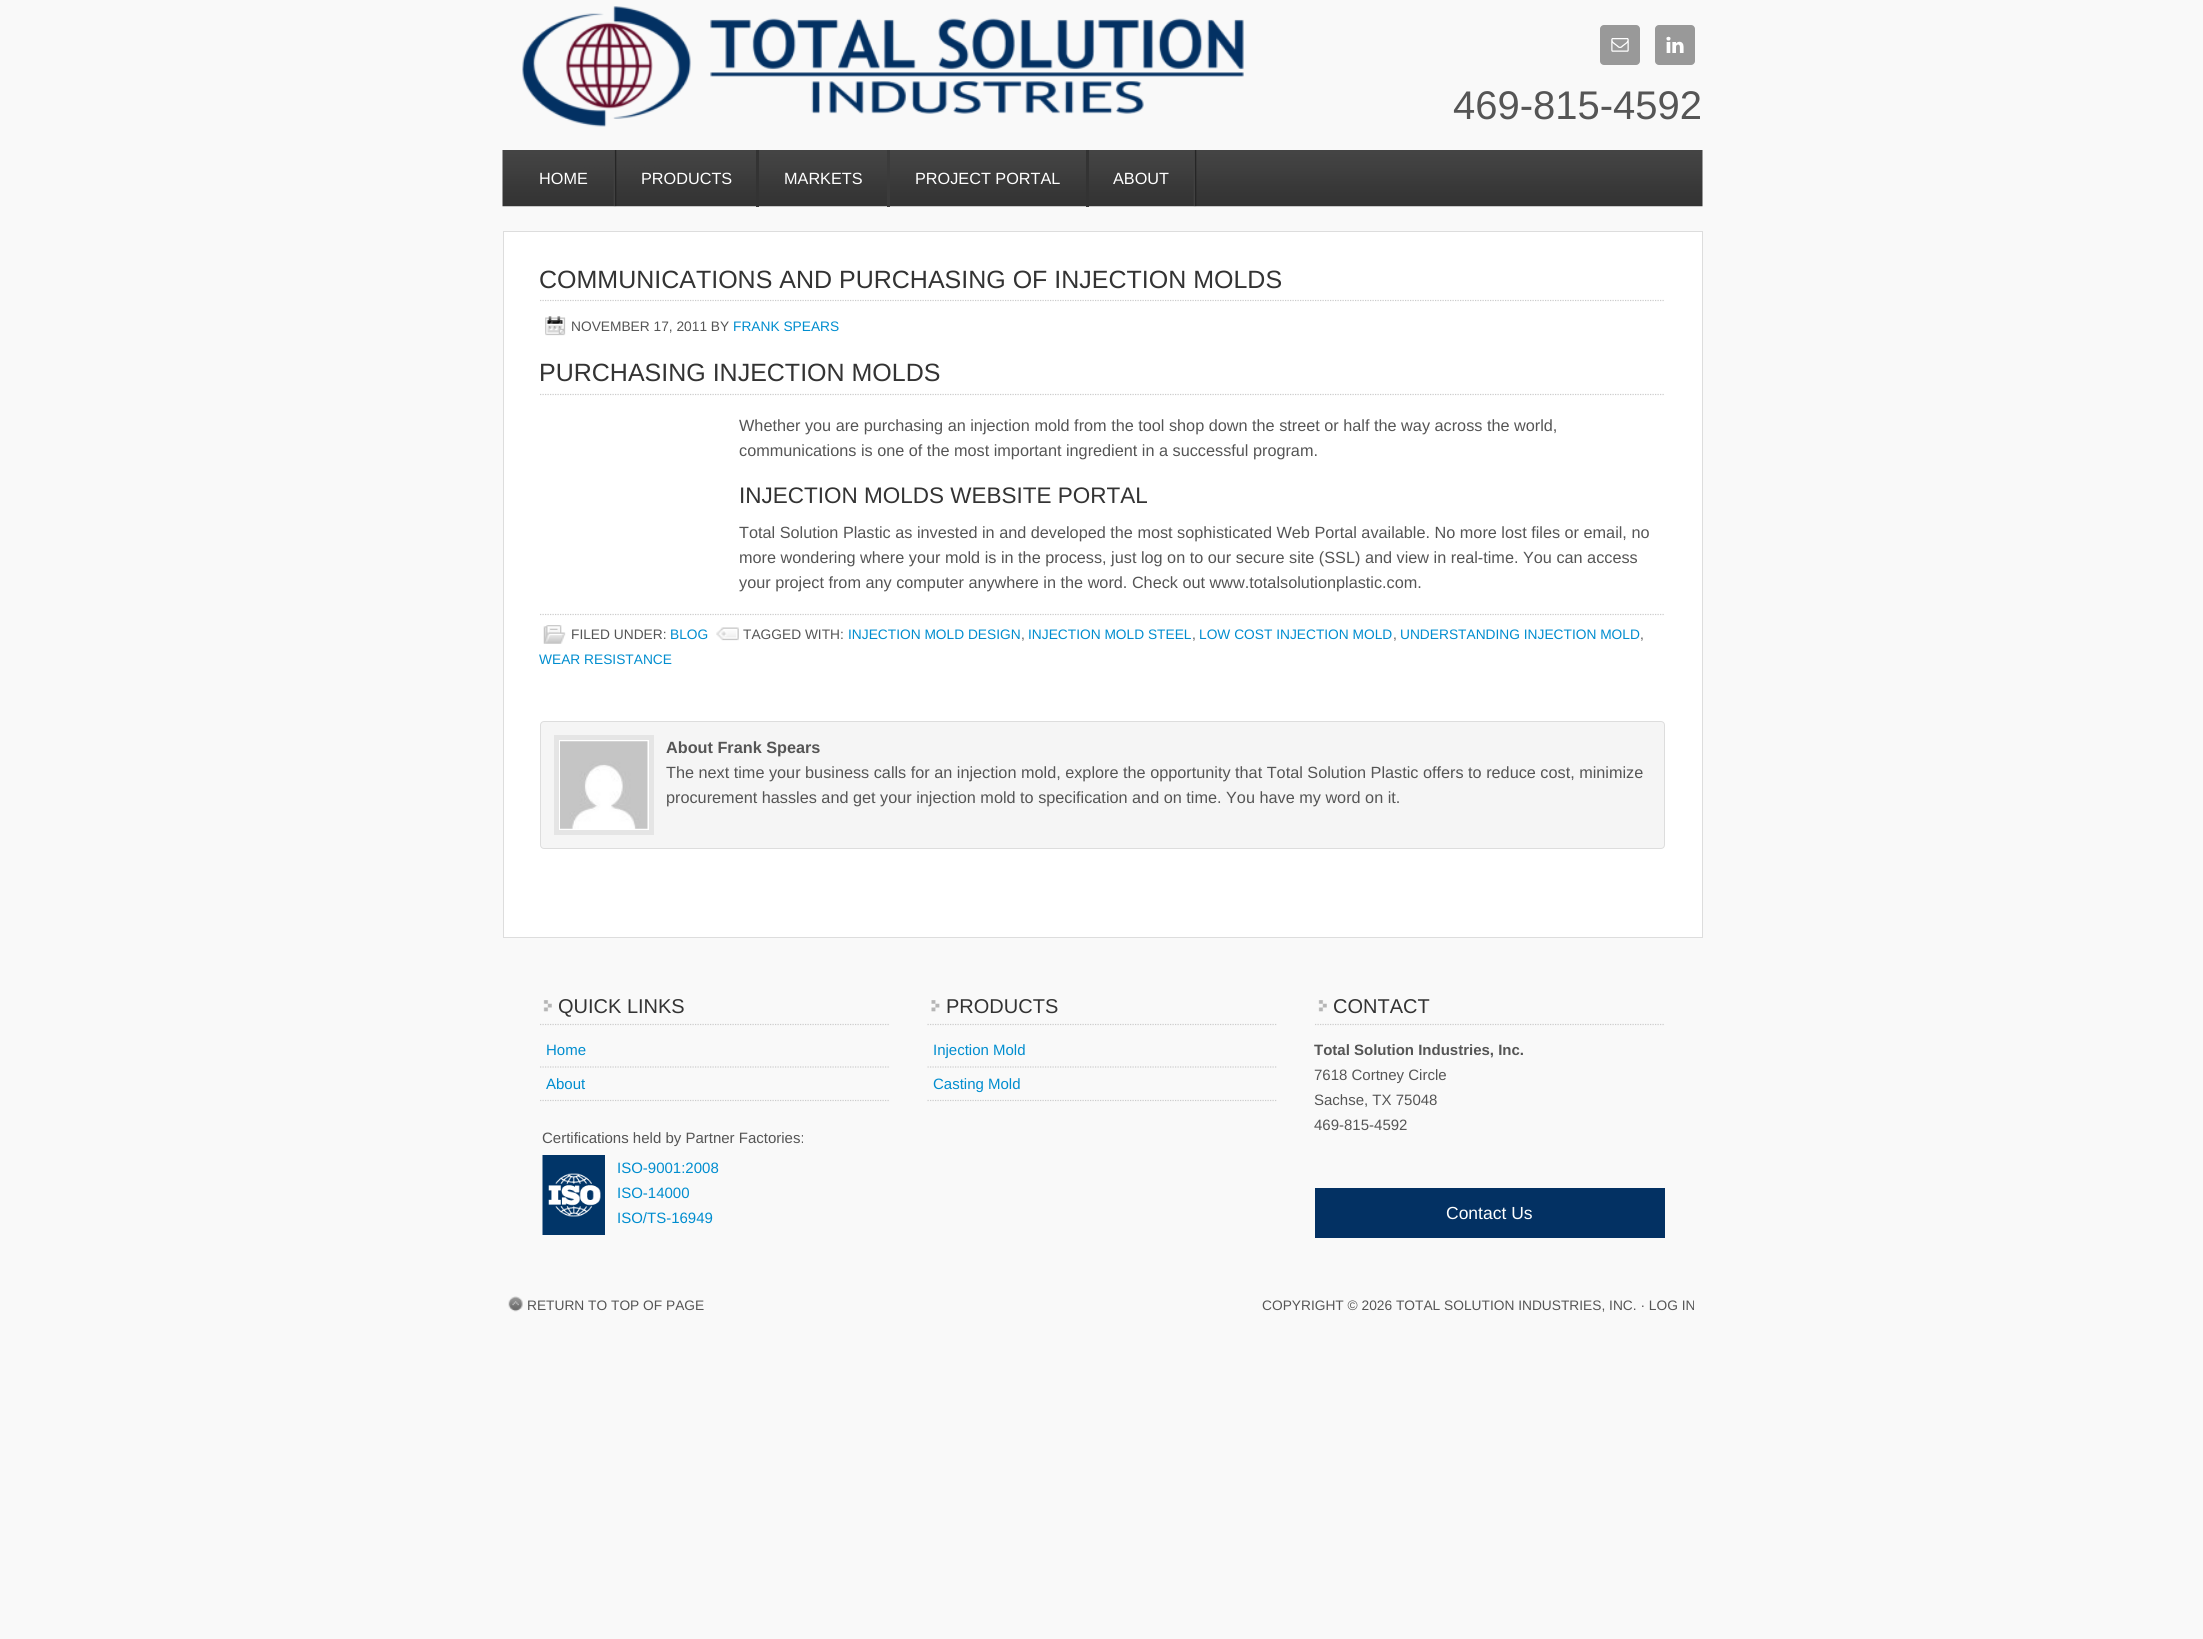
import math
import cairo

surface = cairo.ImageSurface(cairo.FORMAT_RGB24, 2203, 1639)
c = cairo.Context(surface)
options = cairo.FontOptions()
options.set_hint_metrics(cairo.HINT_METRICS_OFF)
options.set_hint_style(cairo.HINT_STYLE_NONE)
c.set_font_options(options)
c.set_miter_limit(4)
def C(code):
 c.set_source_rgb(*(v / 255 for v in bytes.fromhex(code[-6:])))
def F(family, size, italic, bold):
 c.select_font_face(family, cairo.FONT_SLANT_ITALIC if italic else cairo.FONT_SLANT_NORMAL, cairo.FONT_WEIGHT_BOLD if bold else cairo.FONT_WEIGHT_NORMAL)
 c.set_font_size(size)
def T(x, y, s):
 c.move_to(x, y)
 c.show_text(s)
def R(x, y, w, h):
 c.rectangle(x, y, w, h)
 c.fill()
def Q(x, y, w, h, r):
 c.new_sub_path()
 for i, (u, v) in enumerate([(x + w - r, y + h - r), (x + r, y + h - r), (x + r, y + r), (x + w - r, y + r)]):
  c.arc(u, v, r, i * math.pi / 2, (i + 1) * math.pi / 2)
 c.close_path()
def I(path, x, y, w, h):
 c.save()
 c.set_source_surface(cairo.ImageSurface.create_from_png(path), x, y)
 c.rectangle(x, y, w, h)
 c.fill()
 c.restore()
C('f9f9f9')
c.paint()
I('1.png',522,6,722,121)
C('999999')
Q(1600,25,40,40,4)
c.fill()
I('2.png',1611,38,18,14)
Q(1655,25,40,40,4)
c.fill()
I('3.png',1666,36,18,17)
F('Liberation Sans',40,0,0)
C('555555')
T(1453,119,'469-815-4592')
I('4.png',502,150,1201,57)
I('5.png',613,150,4,57)
F('Liberation Sans',16.25,0,0)
C('ffffff')
T(539,184,'HOME')
C('333333')
R(756,150,3,57)
C('ffffff')
T(641,184,'PRODUCTS')
C('3b3b3b')
R(887,150,3,57)
C('ffffff')
T(784,184,'MARKETS')
C('333333')
R(1086,150,3,57)
C('ffffff')
T(915,184,'PROJECT PORTAL')
I('5.png',1193,150,4,57)
T(1113,184,'ABOUT')
c.rectangle(503.5,231.5,1199,706)
c.fill_preserve()
C('dddddd')
c.set_line_width(1)
c.stroke()
c.new_path()
c.move_to(540,300.5)
c.line_to(1665,300.5)
C('cccccc')
c.set_line_width(1.2)
c.set_dash([1.25,1.25])
c.stroke()
F('Liberation Sans',25,0,0)
C('333333')
T(539,288,'COMMUNICATIONS AND PURCHASING OF INJECTION MOLDS')
I('6.png',545,316,21,20)
F('Liberation Sans',13.75,0,0)
C('555555')
T(571,331,'NOVEMBER 17, 2011 BY')
C('008dcf')
T(733,331,'FRANK SPEARS')
c.new_path()
c.move_to(540,394.5)
c.line_to(1665,394.5)
C('cccccc')
c.stroke()
F('Liberation Sans',25,0,0)
C('333333')
T(539,381,'PURCHASING INJECTION MOLDS')
F('Liberation Sans',16.25,0,0)
C('555555')
T(739,431,'Whether you are purchasing an injection mold from the tool shop down the street or half the way across the world,')
T(739,456,'communications is one of the most important ingredient in a successful program.')
F('Liberation Sans',22.5,0,0)
C('333333')
T(739,503,'INJECTION MOLDS WEBSITE PORTAL')
F('Liberation Sans',16.25,0,0)
C('555555')
T(739,538,'Total Solution Plastic as invested in and developed the most sophisticated Web Portal available. No more lost files or email, no')
T(739,563,'more wondering where your mold is in the process, just log on to our secure site (SSL) and view in real-time. You can access')
T(739,588,'your project from any computer anywhere in the word. Check out www.totalsolutionplastic.com.')
c.new_path()
c.move_to(540,614.5)
c.line_to(1665,614.5)
C('cccccc')
c.stroke()
I('7.png',543,625,23,19)
F('Liberation Sans',13.75,0,0)
C('555555')
T(571,639,'FILED UNDER:')
C('008dcf')
T(670,639,'BLOG')
I('8.png',716,627,23,14)
C('555555')
T(743,639,'TAGGED WITH:')
C('008dcf')
T(848,639,'INJECTION MOLD DESIGN')
C('555555')
T(1021,639,',')
C('008dcf')
T(1028,639,'INJECTION MOLD STEEL')
C('555555')
T(1192,639,',')
C('008dcf')
T(1199,639,'LOW COST INJECTION MOLD')
C('555555')
T(1393,639,',')
C('008dcf')
T(1400,639,'UNDERSTANDING INJECTION MOLD')
C('555555')
T(1640,639,',')
C('008dcf')
T(539,664,'WEAR RESISTANCE')
C('f5f5f5')
Q(540.5,721.5,1124,127,3.5)
c.fill_preserve()
C('dddddd')
c.set_line_width(1)
c.set_dash([])
c.stroke()
C('ffffff')
c.rectangle(556.5,737.5,95,95)
c.fill_preserve()
C('e5e5e5')
c.set_line_width(5)
c.stroke()
I('9.png',560,741,88,88)
F('Liberation Sans',16.25,0,1)
C('555555')
T(666,753,'About Frank Spears')
F('Liberation Sans',16.25,0,0)
T(666,778,'The next time your business calls for an injection mold, explore the opportunity that Total Solution Plastic offers to reduce cost, minimize')
T(666,803,'procurement hassles and get your injection mold to specification and on time. You have my word on it.')
I('10.png',543,1000,9,12)
c.new_path()
c.move_to(540,1024.5)
c.line_to(890,1024.5)
C('cccccc')
c.set_line_width(1.2)
c.set_dash([1.25,1.25])
c.stroke()
F('Liberation Sans',20,0,0)
C('333333')
T(558,1013,'QUICK LINKS')
c.new_path()
c.move_to(540,1067)
c.line_to(890,1067)
C('cccccc')
c.stroke()
F('Liberation Sans',15,0,0)
C('008dcf')
T(546,1055,'Home')
c.new_path()
c.move_to(540,1100.5)
c.line_to(890,1100.5)
C('cccccc')
c.stroke()
C('008dcf')
T(546,1089,'About')
C('555555')
T(542,1143,'Certifications held by Partner Factories:')
I('11.png',542,1155,63,80)
C('008dcf')
T(617,1173,'ISO-9001:2008')
T(617,1198,'ISO-14000')
T(617,1223,'ISO/TS-16949')
I('12.png',931,1000,9,12)
c.new_path()
c.move_to(927.5,1024.5)
c.line_to(1277.5,1024.5)
C('cccccc')
c.stroke()
F('Liberation Sans',20,0,0)
C('333333')
T(946,1013,'PRODUCTS')
c.new_path()
c.move_to(927.5,1067)
c.line_to(1277.5,1067)
C('cccccc')
c.stroke()
F('Liberation Sans',15,0,0)
C('008dcf')
T(933,1055,'Injection Mold')
c.new_path()
c.move_to(927.5,1100.5)
c.line_to(1277.5,1100.5)
C('cccccc')
c.stroke()
C('008dcf')
T(933,1089,'Casting Mold')
I('10.png',1318,1000,9,12)
c.new_path()
c.move_to(1315,1024.5)
c.line_to(1665,1024.5)
C('cccccc')
c.stroke()
F('Liberation Sans',20,0,0)
C('333333')
T(1333,1013,'CONTACT')
F('Liberation Sans',15,0,1)
C('555555')
T(1314,1055,'Total Solution Industries, Inc.')
F('Liberation Sans',15,0,0)
T(1314,1080,'7618 Cortney Circle')
T(1314,1105,'Sachse, TX 75048')
T(1314,1130,'469-815-4592')
C('033163')
R(1315,1188,350,50)
F('Liberation Sans',17.5,0,0)
C('ffffff')
T(1446,1219,'Contact Us')
I('13.png',508,1296,15,16)
F('Liberation Sans',13.75,0,0)
C('555555')
T(527,1310,'RETURN TO TOP OF PAGE')
T(1262,1310,'COPYRIGHT © 2026 TOTAL SOLUTION INDUSTRIES, INC. · LOG IN')
surface.write_to_png('o.png')
